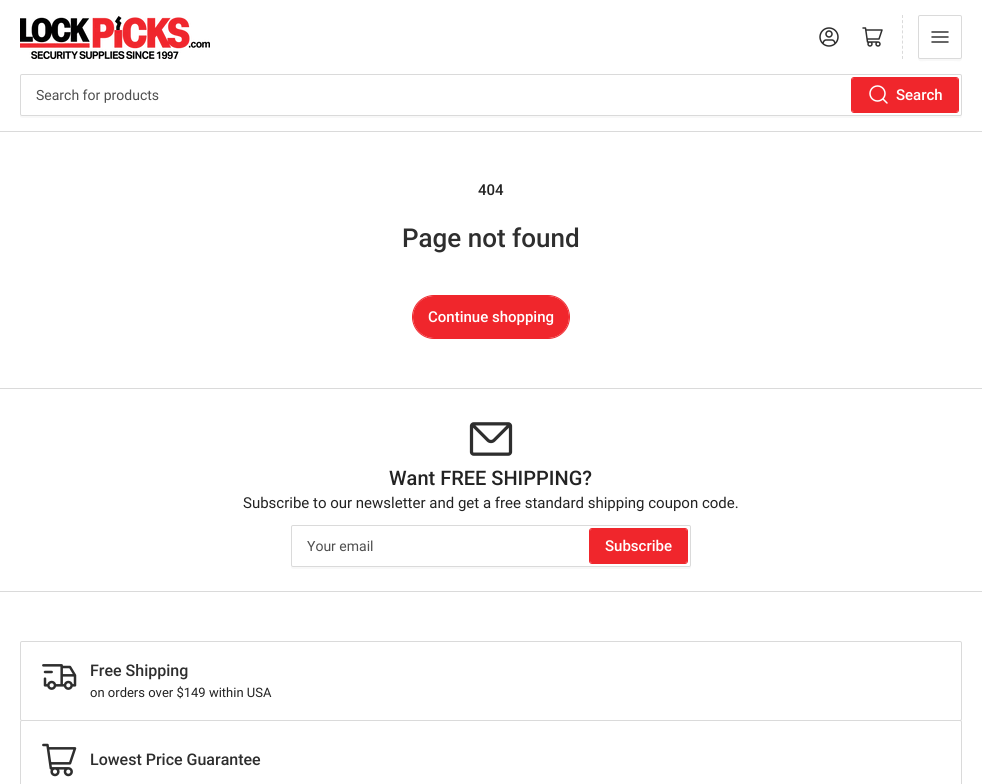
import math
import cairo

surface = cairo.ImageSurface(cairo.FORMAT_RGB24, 982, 784)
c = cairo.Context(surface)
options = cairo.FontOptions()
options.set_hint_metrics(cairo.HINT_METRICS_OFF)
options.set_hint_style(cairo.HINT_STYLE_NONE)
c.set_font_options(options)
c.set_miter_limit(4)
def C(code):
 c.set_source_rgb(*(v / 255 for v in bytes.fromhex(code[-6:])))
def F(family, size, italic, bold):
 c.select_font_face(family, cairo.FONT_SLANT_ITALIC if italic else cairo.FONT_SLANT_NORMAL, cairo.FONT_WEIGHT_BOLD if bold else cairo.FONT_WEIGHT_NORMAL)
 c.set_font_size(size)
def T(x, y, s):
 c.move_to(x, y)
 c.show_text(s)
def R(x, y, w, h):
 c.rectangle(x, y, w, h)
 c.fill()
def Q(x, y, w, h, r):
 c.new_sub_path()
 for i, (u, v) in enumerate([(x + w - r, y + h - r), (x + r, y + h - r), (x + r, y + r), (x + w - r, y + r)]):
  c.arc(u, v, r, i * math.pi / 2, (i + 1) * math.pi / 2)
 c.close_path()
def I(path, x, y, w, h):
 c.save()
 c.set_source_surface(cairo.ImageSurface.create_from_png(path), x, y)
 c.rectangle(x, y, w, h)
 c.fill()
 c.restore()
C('ffffff')
c.paint()
C('dadada')
R(0,131,982,1)
I('1.png',20,16,190,43)
I('2.png',819,27,20,20)
I('3.png',862,27,21,20)
c.new_path()
c.move_to(902.5,15)
c.line_to(902.5,59)
c.set_line_width(1)
c.set_dash([3,2.12])
c.stroke()
C('f8f8f8')
c.new_path()
c.move_to(918,57)
c.curve_to(918,63,921,61,927,61)
c.line_to(953,61)
c.curve_to(959,61,962,63,962,57)
c.curve_to(962,58,961,59,960,59)
c.line_to(920,59)
c.curve_to(919,59,918,58,918,57)
c.close_path()
c.fill()
Q(918.5,15.5,43,43,1.5)
C('dadada')
c.set_dash([])
c.stroke()
I('4.png',931,31,18,12)
C('f8f8f8')
c.new_path()
c.move_to(20,114)
c.line_to(20,117)
c.line_to(22,118)
c.line_to(960,118)
c.curve_to(962,118,962,116,962,114)
c.curve_to(962,115,961,116,960,116)
c.line_to(22,116)
c.curve_to(21,116,20,115,20,114)
c.close_path()
c.fill()
Q(20.5,74.5,941,41,1.5)
C('dadada')
c.stroke()
F('Roboto',14,0,0)
C('4f4f4f')
T(36,100,'Search for products')
Q(851.5,77.5,107,35,2.5)
C('f0262c')
c.stroke()
Q(852,78,106,34,2)
c.fill()
I('5.png',869,85,19,19)
F('Roboto Medium',15,0,0)
C('ffffff')
T(896,100,'Search')
C('232323')
T(478,195,'404')
F('Roboto Medium',26,0,0)
C('2e2e2e')
T(402,247,'Page not found')
Q(412.5,295.5,157,43,21.5)
C('f0262c')
c.stroke()
Q(413,296,156,42,21)
c.fill()
F('Roboto Medium',15,0,0)
C('ffffff')
T(428,322,'Continue shopping')
C('dadada')
R(0,388,982,1)
R(0,591,982,1)
I('6.png',469,422,44,34)
F('Roboto Medium',20,0,0)
C('232323')
T(389,485,'Want FREE SHIPPING?')
F('Roboto',15,0,0)
T(243,508,'Subscribe to our newsletter and get a free standard shipping coupon code.')
C('f8f8f8')
c.new_path()
c.move_to(291,565)
c.line_to(291,567)
c.curve_to(291,568,292,569,293,569)
c.line_to(689,569)
c.curve_to(690,569,691,568,691,567)
c.line_to(691,565)
c.curve_to(691,566,690,567,689,567)
c.line_to(293,567)
c.curve_to(292,567,291,566,291,565)
c.close_path()
c.fill()
Q(291.5,525.5,399,41,1.5)
C('dadada')
c.stroke()
F('Roboto',14,0,0)
C('4f4f4f')
T(307,551,'Your email')
Q(589.5,528.5,98,35,2.5)
C('f0262c')
c.stroke()
Q(590,529,97,34,2)
c.fill()
F('Roboto Medium',15,0,0)
C('ffffff')
T(605,551,'Subscribe')
Q(20.5,641.5,941,79,1.5)
C('dadada')
c.stroke()
I('7.png',42,664,35,26)
F('Roboto Medium',16,0,0)
C('2e2e2e')
T(90,676,'Free Shipping')
F('Roboto',13,0,0)
C('232323')
T(90,697,'on orders over $149 within USA')
C('ffffff')
Q(20.5,720.5,941,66,1.5)
c.fill_preserve()
C('dadada')
c.stroke()
I('8.png',42,743,35,34)
F('Roboto Medium',16,0,0)
C('2e2e2e')
T(90,765,'Lowest Price Guarantee')
surface.write_to_png('o.png')
